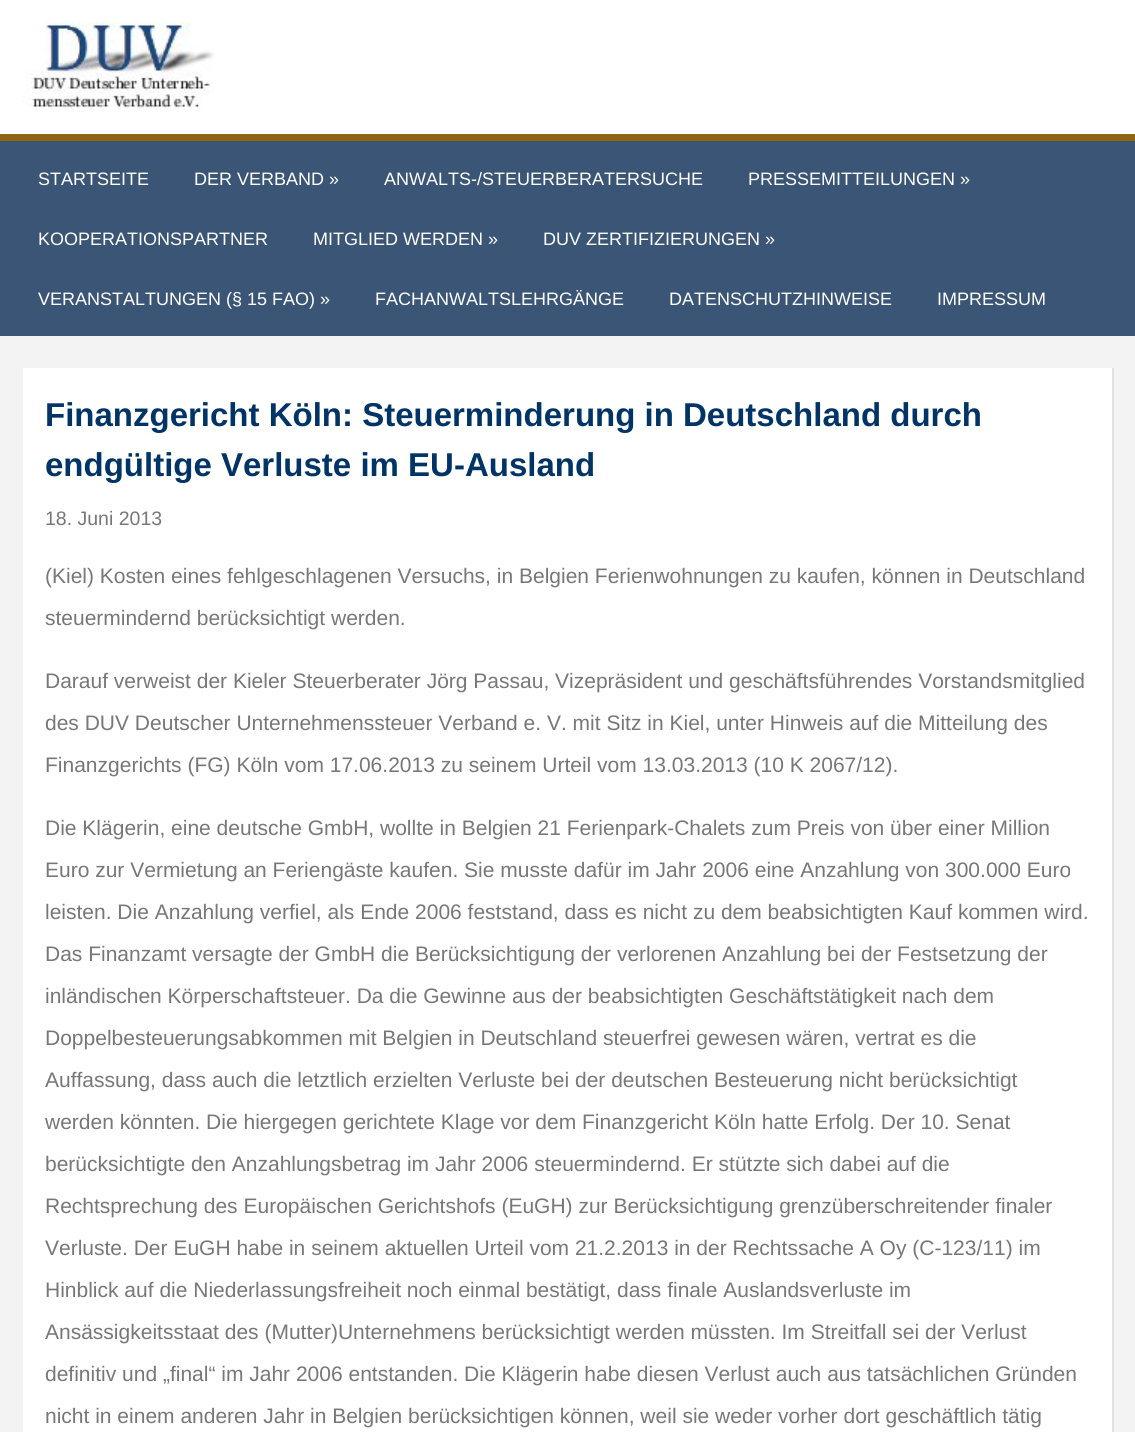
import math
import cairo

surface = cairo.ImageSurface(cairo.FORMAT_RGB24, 1135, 1432)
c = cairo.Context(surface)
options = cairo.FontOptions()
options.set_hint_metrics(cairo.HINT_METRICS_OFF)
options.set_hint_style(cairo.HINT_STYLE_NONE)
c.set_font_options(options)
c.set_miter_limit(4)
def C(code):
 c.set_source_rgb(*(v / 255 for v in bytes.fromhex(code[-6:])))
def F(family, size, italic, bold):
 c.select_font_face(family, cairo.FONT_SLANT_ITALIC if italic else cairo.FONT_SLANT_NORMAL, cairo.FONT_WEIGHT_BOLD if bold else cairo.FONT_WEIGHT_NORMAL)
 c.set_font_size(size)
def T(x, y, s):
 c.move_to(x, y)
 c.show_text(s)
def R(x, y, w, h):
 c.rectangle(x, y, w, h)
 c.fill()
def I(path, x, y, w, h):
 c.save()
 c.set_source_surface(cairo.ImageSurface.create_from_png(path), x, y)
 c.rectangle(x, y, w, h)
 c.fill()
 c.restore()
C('f3f3f3')
c.paint()
C('ffffff')
R(0,0,1135,134)
I('1.png',22,22,192,88)
C('3b5576')
R(0,141,1135,195)
C('8f6510')
R(0,134,1135,7)
F('Liberation Sans',18,0,0)
C('ffffff')
T(38,185,'STARTSEITE')
T(194,185,'DER VERBAND »')
T(384,185,'ANWALTS-/STEUERBERATERSUCHE')
T(748,185,'PRESSEMITTEILUNGEN »')
T(38,245,'KOOPERATIONSPARTNER')
T(313,245,'MITGLIED WERDEN »')
T(543,245,'DUV ZERTIFIZIERUNGEN »')
T(38,305,'VERANSTALTUNGEN (§ 15 FAO) »')
T(375,305,'FACHANWALTSLEHRGÄNGE')
T(669,305,'DATENSCHUTZHINWEISE')
T(937,305,'IMPRESSUM')
R(23,368,1089,1064)
C('e1e1e1')
R(1112,368,2,1064)
F('Liberation Sans',33,0,1)
C('003366')
T(45,426,'Finanzgericht Köln: Steuerminderung in Deutschland durch')
T(45,476,'endgültige Verluste im EU-Ausland')
F('Liberation Sans',19.5,0,0)
C('777777')
T(45,525,'18. Juni 2013')
F('Liberation Sans',21,0,0)
T(45,583,'(Kiel) Kosten eines fehlgeschlagenen Versuchs, in Belgien Ferienwohnungen zu kaufen, können in Deutschland')
T(45,625,'steuermindernd berücksichtigt werden.')
T(45,688,'Darauf verweist der Kieler Steuerberater Jörg Passau, Vizepräsident und geschäftsführendes Vorstandsmitglied')
T(45,730,'des DUV Deutscher Unternehmenssteuer Verband e. V. mit Sitz in Kiel, unter Hinweis auf die Mitteilung des')
T(45,772,'Finanzgerichts (FG) Köln vom 17.06.2013 zu seinem Urteil vom 13.03.2013 (10 K 2067/12).')
T(45,835,'Die Klägerin, eine deutsche GmbH, wollte in Belgien 21 Ferienpark-Chalets zum Preis von über einer Million')
T(45,877,'Euro zur Vermietung an Feriengäste kaufen. Sie musste dafür im Jahr 2006 eine Anzahlung von 300.000 Euro')
T(45,919,'leisten. Die Anzahlung verfiel, als Ende 2006 feststand, dass es nicht zu dem beabsichtigten Kauf kommen wird.')
T(45,961,'Das Finanzamt versagte der GmbH die Berücksichtigung der verlorenen Anzahlung bei der Festsetzung der')
T(45,1003,'inländischen Körperschaftsteuer. Da die Gewinne aus der beabsichtigten Geschäftstätigkeit nach dem')
T(45,1045,'Doppelbesteuerungsabkommen mit Belgien in Deutschland steuerfrei gewesen wären, vertrat es die')
T(45,1087,'Auffassung, dass auch die letztlich erzielten Verluste bei der deutschen Besteuerung nicht berücksichtigt')
T(45,1129,'werden könnten. Die hiergegen gerichtete Klage vor dem Finanzgericht Köln hatte Erfolg. Der 10. Senat')
T(45,1171,'berücksichtigte den Anzahlungsbetrag im Jahr 2006 steuermindernd. Er stützte sich dabei auf die')
T(45,1213,'Rechtsprechung des Europäischen Gerichtshofs (EuGH) zur Berücksichtigung grenzüberschreitender finaler')
T(45,1255,'Verluste. Der EuGH habe in seinem aktuellen Urteil vom 21.2.2013 in der Rechtssache A Oy (C-123/11) im')
T(45,1297,'Hinblick auf die Niederlassungsfreiheit noch einmal bestätigt, dass finale Auslandsverluste im')
T(45,1339,'Ansässigkeitsstaat des (Mutter)Unternehmens berücksichtigt werden müssten. Im Streitfall sei der Verlust')
T(45,1381,'definitiv und „final“ im Jahr 2006 entstanden. Die Klägerin habe diesen Verlust auch aus tatsächlichen Gründen')
T(45,1423,'nicht in einem anderen Jahr in Belgien berücksichtigen können, weil sie weder vorher dort geschäftlich tätig')
surface.write_to_png('o.png')
